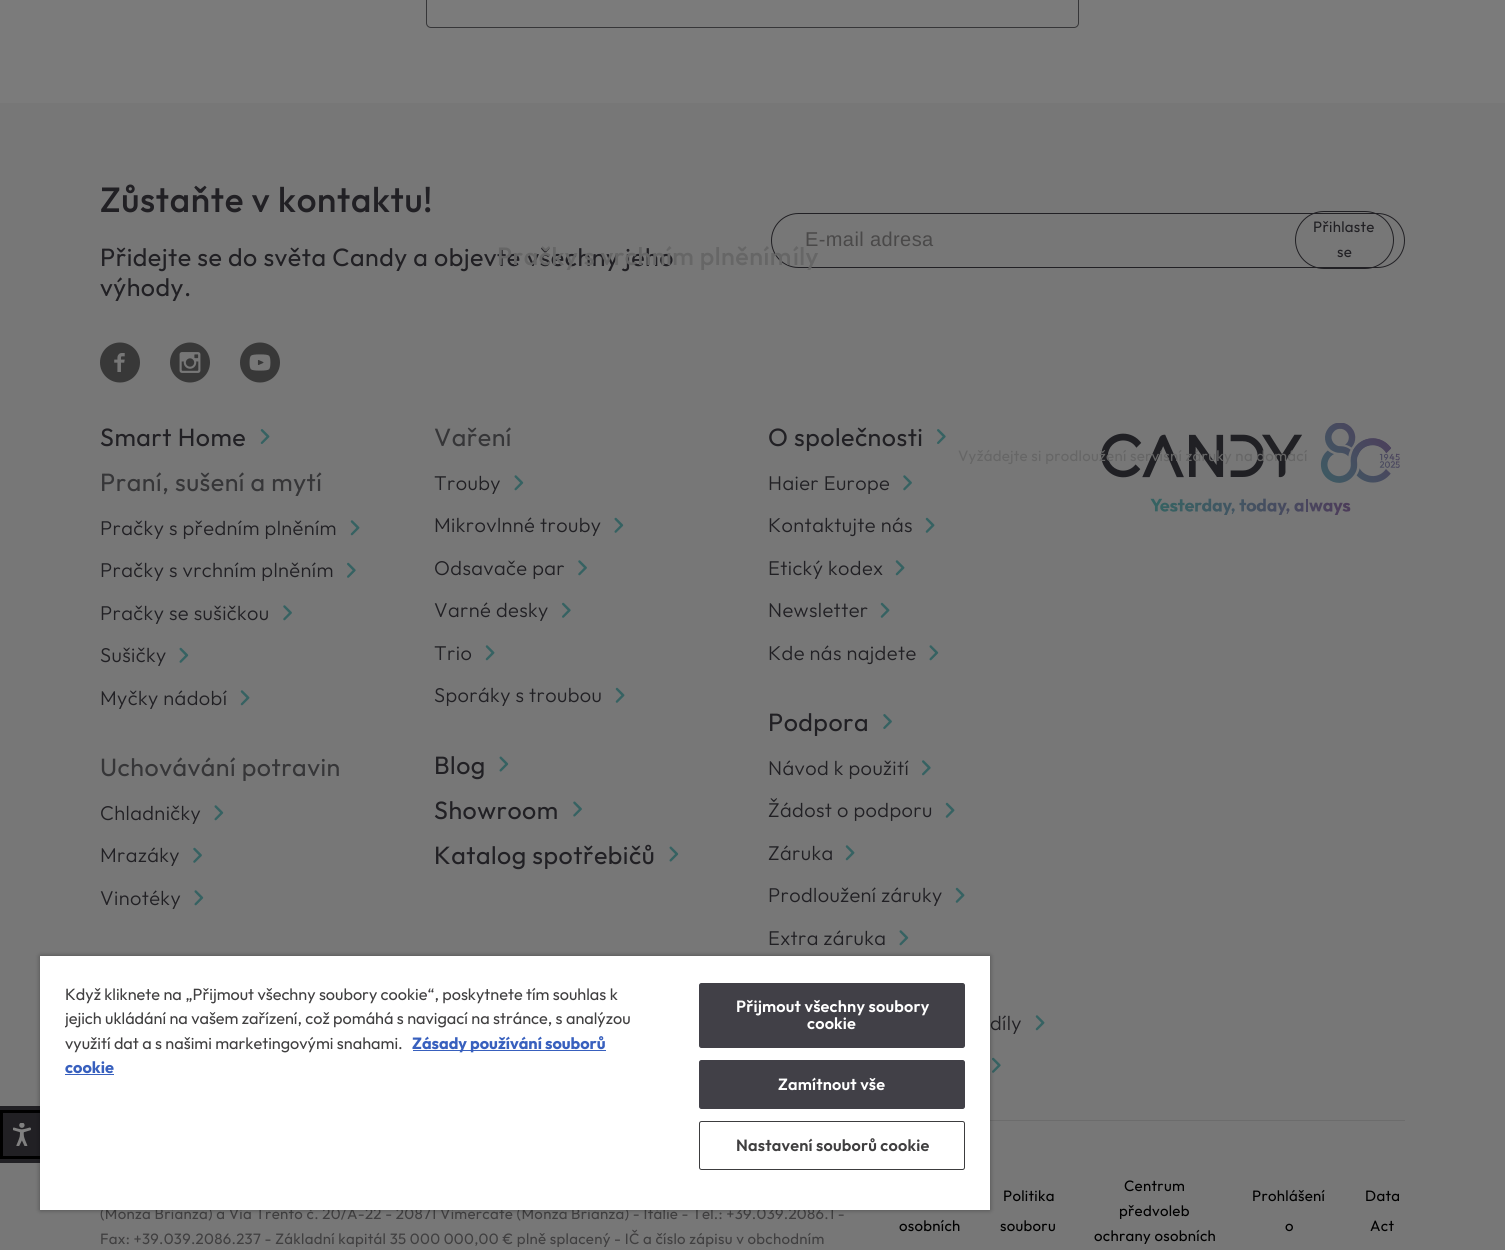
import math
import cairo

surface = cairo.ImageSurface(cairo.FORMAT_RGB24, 1505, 1250)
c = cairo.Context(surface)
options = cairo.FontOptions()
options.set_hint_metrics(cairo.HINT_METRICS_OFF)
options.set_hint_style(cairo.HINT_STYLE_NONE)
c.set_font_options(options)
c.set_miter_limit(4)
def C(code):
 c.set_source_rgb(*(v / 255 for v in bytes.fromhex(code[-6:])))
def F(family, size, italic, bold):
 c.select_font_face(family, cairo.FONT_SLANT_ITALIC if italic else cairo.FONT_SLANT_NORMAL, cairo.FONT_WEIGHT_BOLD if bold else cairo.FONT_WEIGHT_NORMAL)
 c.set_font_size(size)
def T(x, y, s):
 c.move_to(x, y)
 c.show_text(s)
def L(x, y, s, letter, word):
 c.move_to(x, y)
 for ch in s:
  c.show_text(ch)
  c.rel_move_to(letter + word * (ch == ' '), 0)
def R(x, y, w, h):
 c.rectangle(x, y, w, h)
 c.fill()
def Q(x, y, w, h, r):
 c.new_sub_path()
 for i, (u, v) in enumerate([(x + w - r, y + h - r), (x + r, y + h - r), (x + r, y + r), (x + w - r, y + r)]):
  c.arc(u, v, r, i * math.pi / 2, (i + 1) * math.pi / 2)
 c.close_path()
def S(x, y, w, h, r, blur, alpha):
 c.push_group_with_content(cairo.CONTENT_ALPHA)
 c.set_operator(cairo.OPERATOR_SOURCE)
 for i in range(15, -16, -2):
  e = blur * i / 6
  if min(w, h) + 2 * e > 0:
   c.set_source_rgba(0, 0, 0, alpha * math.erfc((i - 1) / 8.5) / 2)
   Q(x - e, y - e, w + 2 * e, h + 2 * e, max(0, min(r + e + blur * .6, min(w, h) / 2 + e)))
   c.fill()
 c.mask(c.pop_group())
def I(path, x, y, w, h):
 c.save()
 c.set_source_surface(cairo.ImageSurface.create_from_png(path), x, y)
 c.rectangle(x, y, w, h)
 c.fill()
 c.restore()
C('7b7b7b')
c.paint()
Q(426.5,-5.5,652,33,4.5)
C('363638')
c.set_line_width(1)
c.stroke()
C('777777')
R(0,103,1505,1147)
F('Outfit Medium',35,0,0)
C('212024')
L(100,212,'Zůstaňte v kontaktu!',.7,0)
F('Outfit',25,0,0)
L(100,266,'Přidejte se do světa Candy a objevte všechny jeho',.5,0)
L(100,296,'výhody.',.5,0)
Q(771.5,213.5,633,54,27)
c.stroke()
F('Liberation Sans',20,0,0)
C('4a4949')
L(805,246,'E-mail adresa',.4,0)
Q(1295.5,211.5,98,57,28.5)
C('212024')
c.stroke()
F('Outfit',15,0,0)
L(1313,232,'Přihlaste',.3,0)
L(1337,257,'se',.3,0)
I('1.png',100,342,40,41)
I('2.png',170,342,40,41)
I('3.png',240,342,40,41)
F('Outfit',25,0,0)
L(100,446,'Smart Home',.5,0)
I('4.png',260,429,10,15)
C('363638')
L(100,491,'Praní, sušení a mytí',.5,0)
F('Outfit Light',20,0,0)
C('212024')
L(100,535,'Pračky s předním plněním',.4,0)
I('5.png',350,520,10,16)
L(100,577,'Pračky s vrchním plněním',.4,0)
I('6.png',347,562,9,16)
L(100,620,'Pračky se sušičkou',.4,0)
I('7.png',283,605,9,16)
L(100,662,'Sušičky',.4,0)
I('8.png',179,647,10,16)
L(100,705,'Myčky nádobí',.4,0)
I('5.png',240,690,10,16)
F('Outfit',25,0,0)
C('363638')
L(100,776,'Uchovávání potravin',.5,0)
F('Outfit Light',20,0,0)
C('212024')
L(100,820,'Chladničky',.4,0)
I('9.png',214,805,10,16)
L(100,862,'Mrazáky',.4,0)
I('10.png',193,847,9,16)
L(100,905,'Vinotéky',.4,0)
I('9.png',194,890,10,16)
F('Outfit',25,0,0)
C('363638')
L(434,446,'Vaření',.5,0)
F('Outfit Light',20,0,0)
C('212024')
L(434,490,'Trouby',.4,0)
I('9.png',514,475,10,16)
L(434,532,'Mikrovlnné trouby',.4,0)
I('8.png',614,517,10,16)
L(434,575,'Odsavače par',.4,0)
I('7.png',578,560,9,16)
L(434,617,'Varné desky',.4,0)
I('6.png',562,602,9,16)
L(434,660,'Trio',.4,0)
I('5.png',485,645,10,16)
L(434,702,'Sporáky s troubou',.4,0)
I('11.png',615,687,10,16)
F('Outfit',25,0,0)
L(434,774,'Blog',.5,0)
I('12.png',499,756,10,16)
L(434,819,'Showroom',.5,0)
I('13.png',573,801,9,16)
L(434,864,'Katalog spotřebičů',.5,0)
I('12.png',669,846,10,16)
L(768,446,'O společnosti',.5,0)
I('14.png',937,429,9,15)
F('Outfit Light',20,0,0)
L(768,490,'Haier Europe',.4,0)
I('7.png',903,475,9,16)
L(768,532,'Kontaktujte nás',.4,0)
I('11.png',925,517,10,16)
L(768,575,'Etický kodex',.4,0)
I('5.png',895,560,10,16)
L(768,617,'Newsletter',.4,0)
I('11.png',880,602,10,16)
L(768,660,'Kde nás najdete',.4,0)
I('9.png',929,645,10,16)
F('Outfit',25,0,0)
L(768,731,'Podpora',.5,0)
I('15.png',883,714,9,15)
F('Outfit Light',20,0,0)
L(768,775,'Návod k použití',.4,0)
I('16.png',922,760,9,16)
L(768,817,'Žádost o podporu',.4,0)
I('11.png',945,802,10,16)
L(768,860,'Záruka',.4,0)
I('5.png',845,845,10,16)
L(768,902,'Prodloužení záruky',.4,0)
I('11.png',955,887,10,16)
L(768,945,'Extra záruka',.4,0)
I('9.png',899,930,10,16)
L(990,1030,'díly',.4,0)
I('5.png',1035,1015,10,16)
I('6.png',992,1057,9,16)
I('17.png',1101,423,299,92)
C('6c6c6c')
R(990,1120,415,1)
F('Outfit',15,0,0)
C('403f40')
L(100,1219,'(Monza Brianza) a Via Trento č. 20/A-22 - 20871 Vimercate (Monza Brianza) - Itálie - Tel.: +39.039.2086.1 -',.3,0)
L(100,1244,'Fax: +39.039.2086.237 - Základní kapitál 35 000 000,00 € plně splacený - IČ a číslo zápisu v obchodním',.3,0)
C('000000')
L(899,1231,'osobních',.3,0)
L(1003,1201,'Politika',.3,0)
L(1000,1231,'souboru',.3,0)
L(1124,1191,'Centrum',.3,0)
L(1119,1216,'předvoleb',.3,0)
L(1094,1241,'ochrany osobních',.3,0)
L(1252,1201,'Prohlášení',.3,0)
L(1285,1231,'o',.3,0)
L(1365,1201,'Data',.3,0)
L(1370,1231,'Act',.3,0)
F('Outfit Medium',25,0,0)
C('666666')
L(497,265,'Pračky s vrchním plněním',.5,0)
L(793,265,'íly',.5,0)
F('Outfit',15,0,0)
L(958,461,'Vyžádejte si prodloužení servisní záruky na domácí',.3,0)
C('212024')
R(0,1106,40,57)
c.rectangle(1.5,1111.5,41,46)
C('000000')
c.set_line_width(3)
c.stroke()
I('18.png',13,1123,18,23)
C('000000')
S(40,956,950,254,0,2.5,.35)
C('ffffff')
R(40,956,950,254)
F('Outfit',16.25,0,0)
C('403f40')
T(65,1000,'Když kliknete na „Přijmout všechny soubory cookie“, poskytnete tím souhlas k')
c.save()
c.rectangle(65,983,578,97)
c.clip()
T(65,1024,'jejich ukládání na vašem zařízení, což pomáhá s navigací na stránce, s analýzou')
c.restore()
T(65,1049,'využití dat a s našimi marketingovými snahami.')
C('3860be')
R(413,1050,193,1)
F('Outfit',16.25,0,1)
T(412,1049,'Zásady používání souborů')
T(65,1073,'cookie')
R(65,1074,49,1)
C('414047')
Q(699.5,983.5,265,64,2)
c.fill_preserve()
c.set_line_width(1)
c.stroke()
F('Outfit SemiBold',16.25,0,0)
C('ffffff')
L(736,1012,'Přijmout všechny soubory',.2,0)
L(807,1029,'cookie',.2,0)
C('414047')
Q(699.5,1060.5,265,48,2)
c.fill_preserve()
c.stroke()
C('ffffff')
L(778,1090,'Zamítnout vše',.2,0)
Q(699.5,1121.5,265,48,2)
C('3c3c3e')
c.stroke()
C('403f40')
L(736,1151,'Nastavení souborů cookie',.2,0)
surface.write_to_png('o.png')
